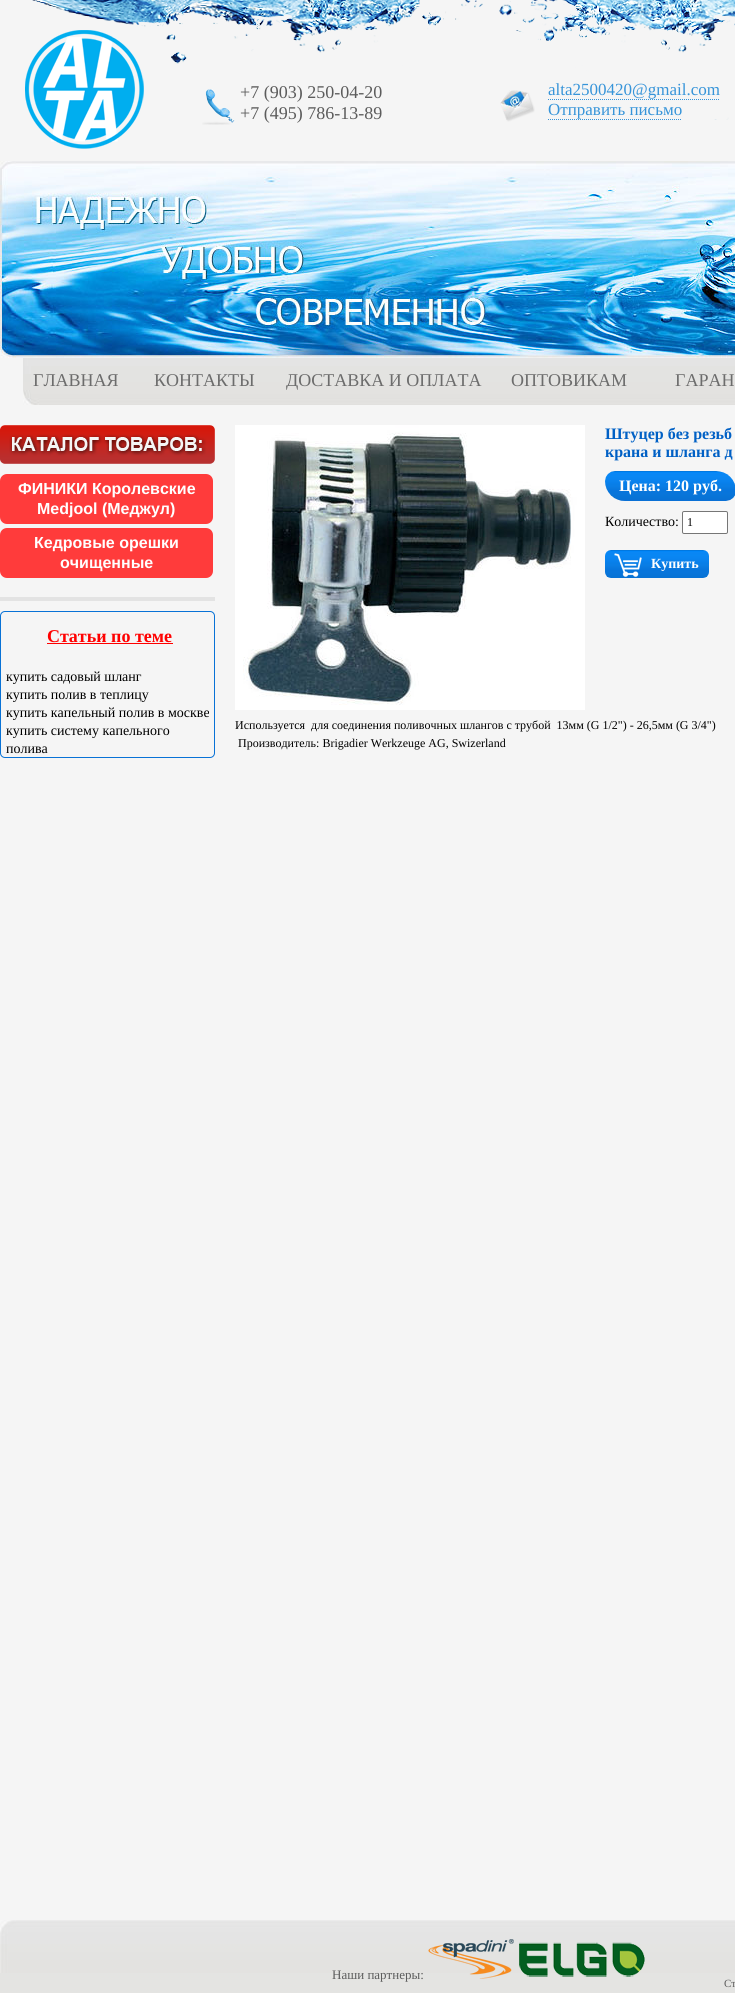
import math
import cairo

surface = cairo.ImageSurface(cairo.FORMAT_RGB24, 735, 1993)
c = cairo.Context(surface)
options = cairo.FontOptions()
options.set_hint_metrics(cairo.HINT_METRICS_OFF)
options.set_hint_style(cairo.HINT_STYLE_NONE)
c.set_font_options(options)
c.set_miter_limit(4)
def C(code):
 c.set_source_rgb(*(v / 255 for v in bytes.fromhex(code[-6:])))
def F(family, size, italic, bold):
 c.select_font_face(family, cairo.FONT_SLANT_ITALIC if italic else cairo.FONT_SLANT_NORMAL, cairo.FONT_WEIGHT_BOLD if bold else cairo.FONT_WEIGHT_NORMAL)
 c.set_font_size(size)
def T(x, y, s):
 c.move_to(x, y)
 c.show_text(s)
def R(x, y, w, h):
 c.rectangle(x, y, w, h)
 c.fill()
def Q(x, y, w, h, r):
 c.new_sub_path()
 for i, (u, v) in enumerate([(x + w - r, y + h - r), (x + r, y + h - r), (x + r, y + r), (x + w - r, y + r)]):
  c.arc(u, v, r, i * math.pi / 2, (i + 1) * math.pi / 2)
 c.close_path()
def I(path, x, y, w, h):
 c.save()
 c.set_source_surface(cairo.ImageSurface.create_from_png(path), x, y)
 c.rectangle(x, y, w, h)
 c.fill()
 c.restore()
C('f5f5f5')
c.paint()
I('1.png',32,0,703,120)
I('2.png',25,30,119,119)
I('3.png',202,89,33,36)
F('Liberation Serif',18,0,0)
C('5c5c5c')
T(240,98,'+7 (903) 250-04-20')
T(240,119,'+7 (495) 786-13-89')
I('4.png',500,90,35,32)
F('Liberation Serif',17,0,0)
C('3694d9')
T(548,95,'alta2500420@gmail.com')
c.new_path()
c.move_to(548,99.5)
c.line_to(720,99.5)
c.set_line_width(1)
c.set_dash([1,1])
c.stroke()
T(548,115,'Отправить письмо')
c.new_path()
c.move_to(548,119.5)
c.line_to(682,119.5)
c.stroke()
I('5.png',0,161,735,197)
I('6.png',23,358,712,47)
F('Liberation Serif',18,0,0)
C('6c6c6c')
T(33,386,'ГЛАВНАЯ')
T(154,386,'КОНТАКТЫ')
T(286,386,'ДОСТАВКА И ОПЛАТА')
T(511,386,'ОПТОВИКАМ')
T(675,386,'ГАРАН')
I('7.png',0,425,215,39)
C('ff3b3b')
Q(0,474,213,50,7)
c.fill()
F('Liberation Sans',16,0,1)
C('ffffff')
T(18,494,'ФИНИКИ Королевские')
T(37,514,'Medjool (Меджул)')
C('ff3b3b')
Q(0,528,213,50,7)
c.fill()
C('ffffff')
T(34,548,'Кедровые орешки')
T(60,568,'очищенные')
C('e3e3e3')
R(0,597,215,4)
Q(.5,611.5,214,146,4.5)
C('0872d6')
c.set_dash([])
c.stroke()
F('Liberation Serif',18,0,1)
C('ff0000')
T(47,642,'Статьи по теме')
R(47,643,126,1)
F('Liberation Serif',14,0,0)
C('000000')
T(6,681,'купить садовый шланг')
T(6,699,'купить полив в теплицу')
T(6,717,'купить капельный полив в москве')
T(6,735,'купить систему капельного')
T(6,753,'полива')
I('8.png',235,425,350,285)
F('Liberation Serif',16,0,1)
C('0060c5')
T(605,439,'Штуцер без резьб')
T(605,457,'крана и шланга д')
I('9.png',605,471,130,30)
C('ffffff')
T(619,491,'Цена: 120 руб.')
F('Liberation Serif',14,0,0)
C('000000')
T(605,526,'Количество:')
C('ffffff')
Q(682.5,511.5,45,22,1.5)
c.fill_preserve()
C('767676')
c.stroke()
F('Liberation Serif',12,0,0)
C('000000')
T(687,526,'1')
I('10.png',605,550,104,28)
I('11.png',614,553,28,24)
F('Liberation Serif',14,0,1)
C('ffffff')
T(651,568,'Купить')
F('Liberation Serif',12,0,0)
C('000000')
T(235,729,'Используется  для соединения поливочных шлангов с трубой  13мм (G 1/2") - 26,5мм (G 3/4")')
T(238,747,'Производитель: Brigadier Werkzeuge AG, Swizerland')
C('e4e4e2')
R(0,1973,735,20)
I('12.png',0,1920,735,53)
F('Liberation Serif',13,0,0)
C('5c5c5c')
T(332,1979,'Наши партнеры:')
I('13.png',428,1939,86,40)
I('14.png',519,1942,126,35)
F('Liberation Serif',11,0,0)
T(724,1987,'Ст')
surface.write_to_png('o.png')
